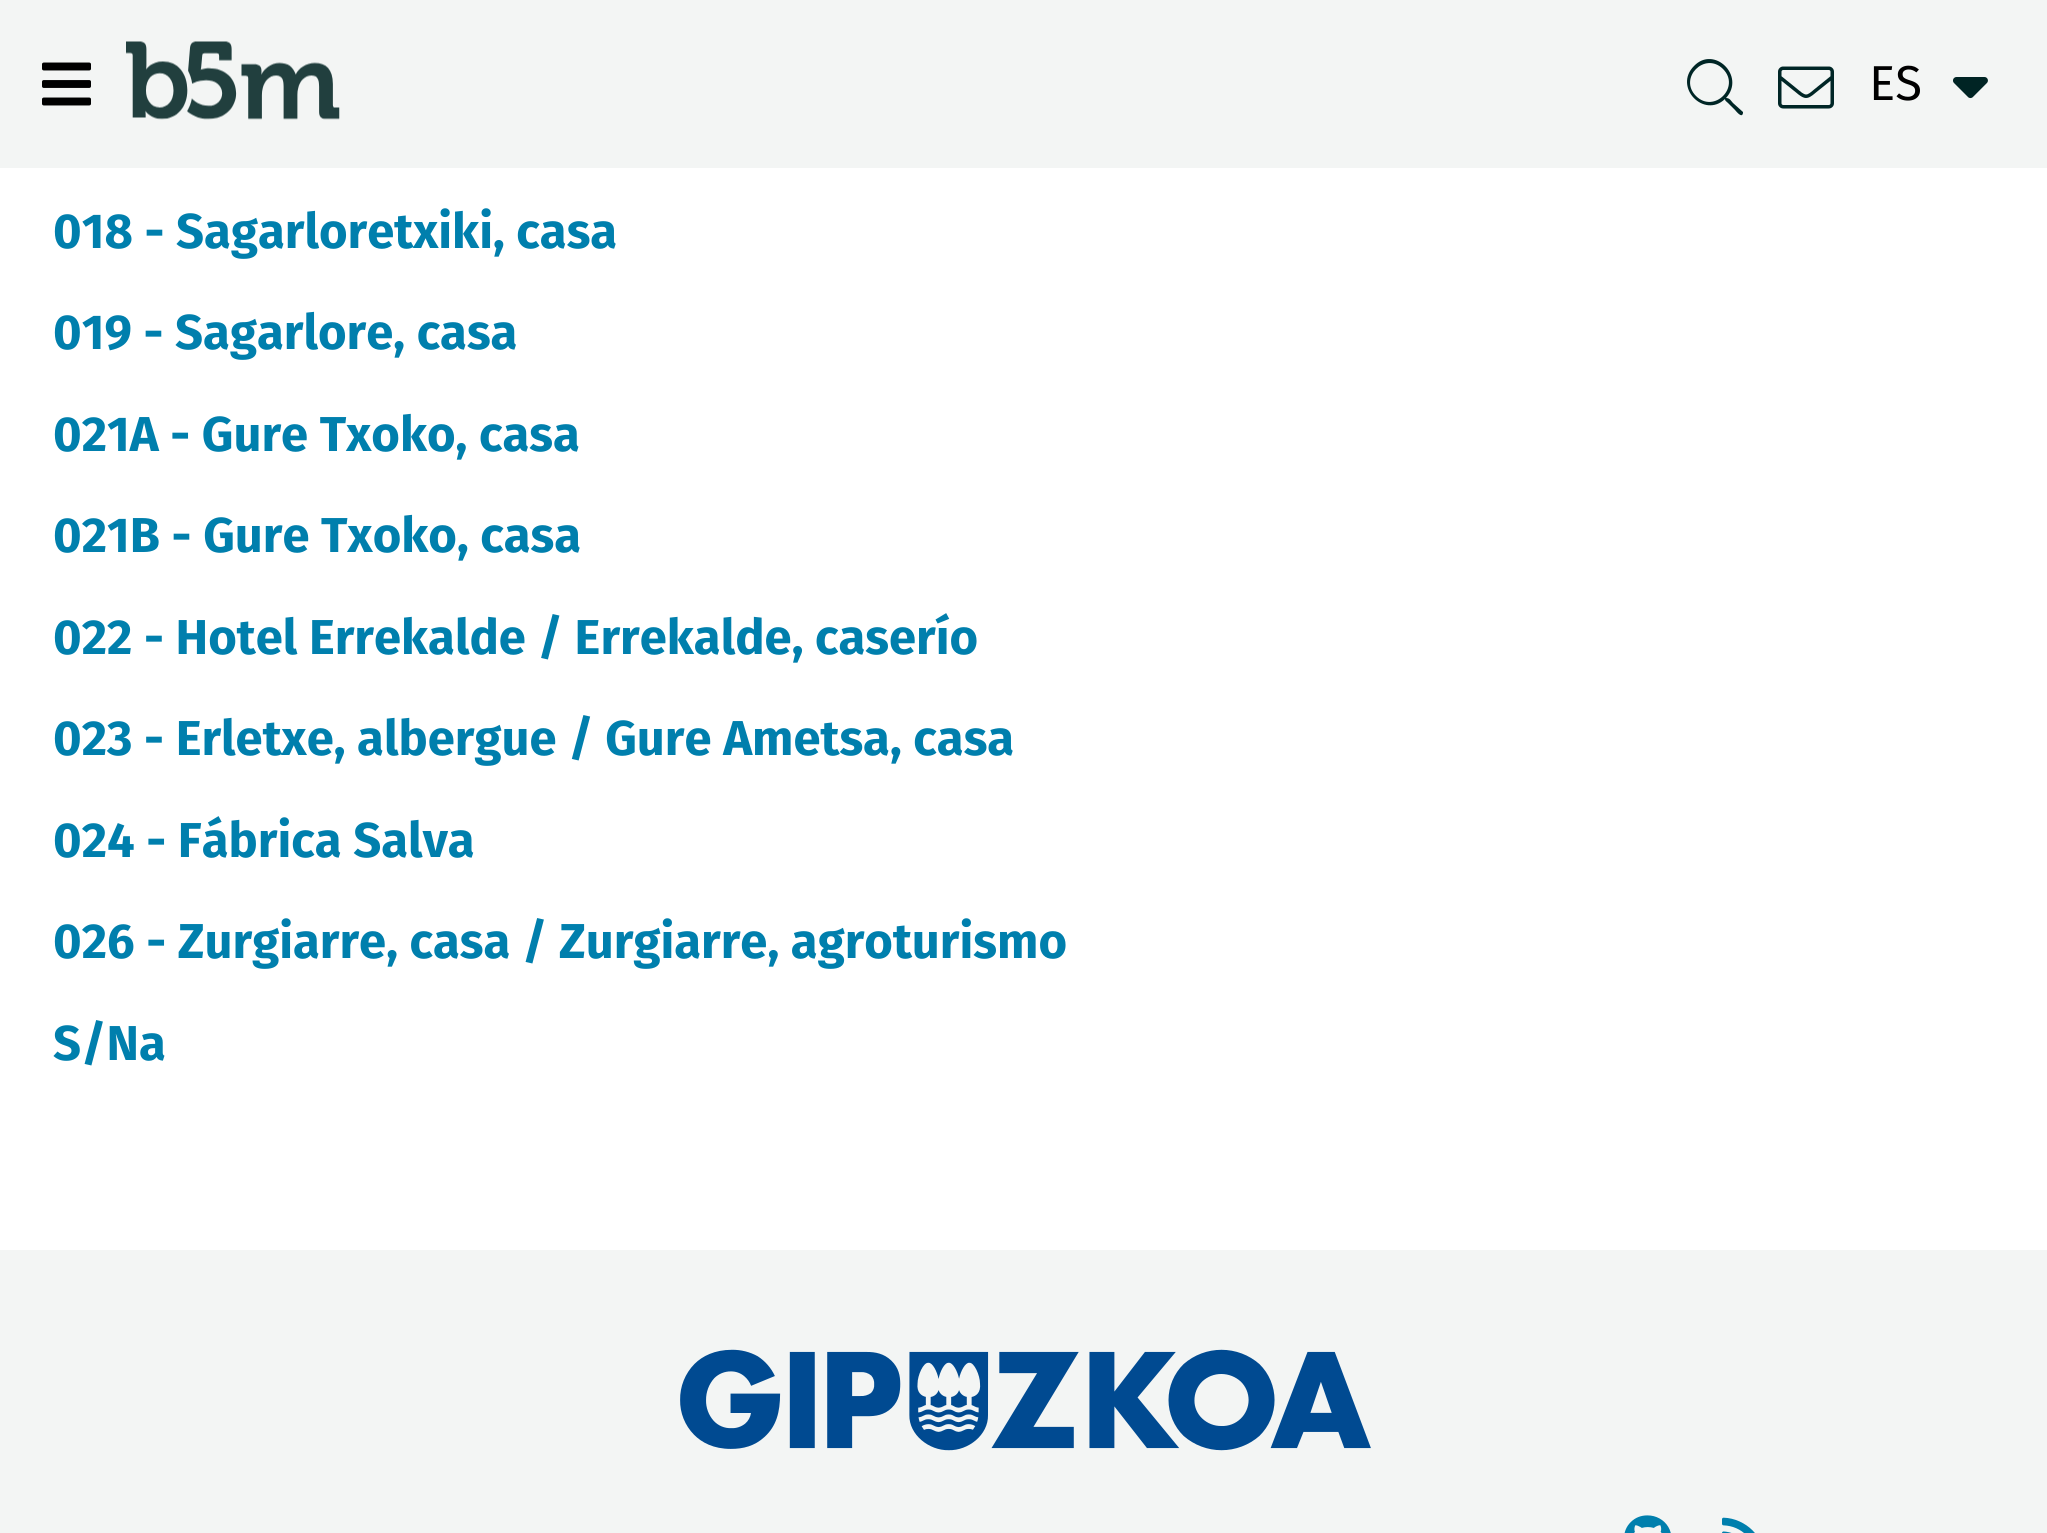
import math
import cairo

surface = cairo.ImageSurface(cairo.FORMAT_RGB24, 2047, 1533)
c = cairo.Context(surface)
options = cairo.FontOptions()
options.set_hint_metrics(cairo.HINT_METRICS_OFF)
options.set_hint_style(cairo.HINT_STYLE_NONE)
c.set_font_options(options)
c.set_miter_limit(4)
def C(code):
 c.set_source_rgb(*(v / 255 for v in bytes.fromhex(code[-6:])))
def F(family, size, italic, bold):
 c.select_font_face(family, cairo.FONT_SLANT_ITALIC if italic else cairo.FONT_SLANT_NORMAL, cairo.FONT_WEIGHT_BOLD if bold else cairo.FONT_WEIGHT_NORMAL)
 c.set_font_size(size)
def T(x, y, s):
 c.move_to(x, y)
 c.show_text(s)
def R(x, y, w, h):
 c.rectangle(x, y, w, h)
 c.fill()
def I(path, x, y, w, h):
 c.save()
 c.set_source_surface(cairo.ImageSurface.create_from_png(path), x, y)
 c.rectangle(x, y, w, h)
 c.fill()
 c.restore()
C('ffffff')
c.paint()
C('f3f5f4')
R(0,0,2047,168)
I('1.png',42,62,49,44)
I('2.png',126,41,214,79)
C('002626')
c.new_path()
c.move_to(1743,112)
c.line_to(1743,113)
c.curve_to(1742,119,1736,111,1735,110)
c.line_to(1728,103)
c.curve_to(1726,101,1725,101,1725,99)
c.curve_to(1704,119,1673,87,1694,66)
c.curve_to(1714,45,1746,76,1726,98)
c.curve_to(1730,98,1731,101,1733,103)
c.close_path()
c.move_to(1696,96)
c.curve_to(1714,114,1741,87,1723,69)
c.curve_to(1705,51,1678,78,1696,96)
c.close_path()
c.fill()
I('3.png',1778,66,56,43)
F('Fira Sans',49,0,0)
C('000000')
T(1869,100,'ES')
I('4.png',1953,77,35,22)
F('Fira Sans',49,0,1)
C('007fad')
T(53,248,'018 - Sagarloretxiki, casa')
T(53,349,'019 - Sagarlore, casa')
T(53,451,'021A - Gure Txoko, casa')
T(53,552,'021B - Gure Txoko, casa')
T(53,654,'022 - Hotel Errekalde / Errekalde, caserío')
T(53,755,'023 - Erletxe, albergue / Gure Ametsa, casa')
T(53,857,'024 - Fábrica Salva')
T(53,958,'026 - Zurgiarre, casa / Zurgiarre, agroturismo')
T(53,1060,'S/Na')
C('f3f5f4')
R(0,1250,2047,283)
I('5.png',680,1349,691,102)
I('6.png',1624,1515,47,18)
I('7.png',1722,1517,33,16)
surface.write_to_png('o.png')
